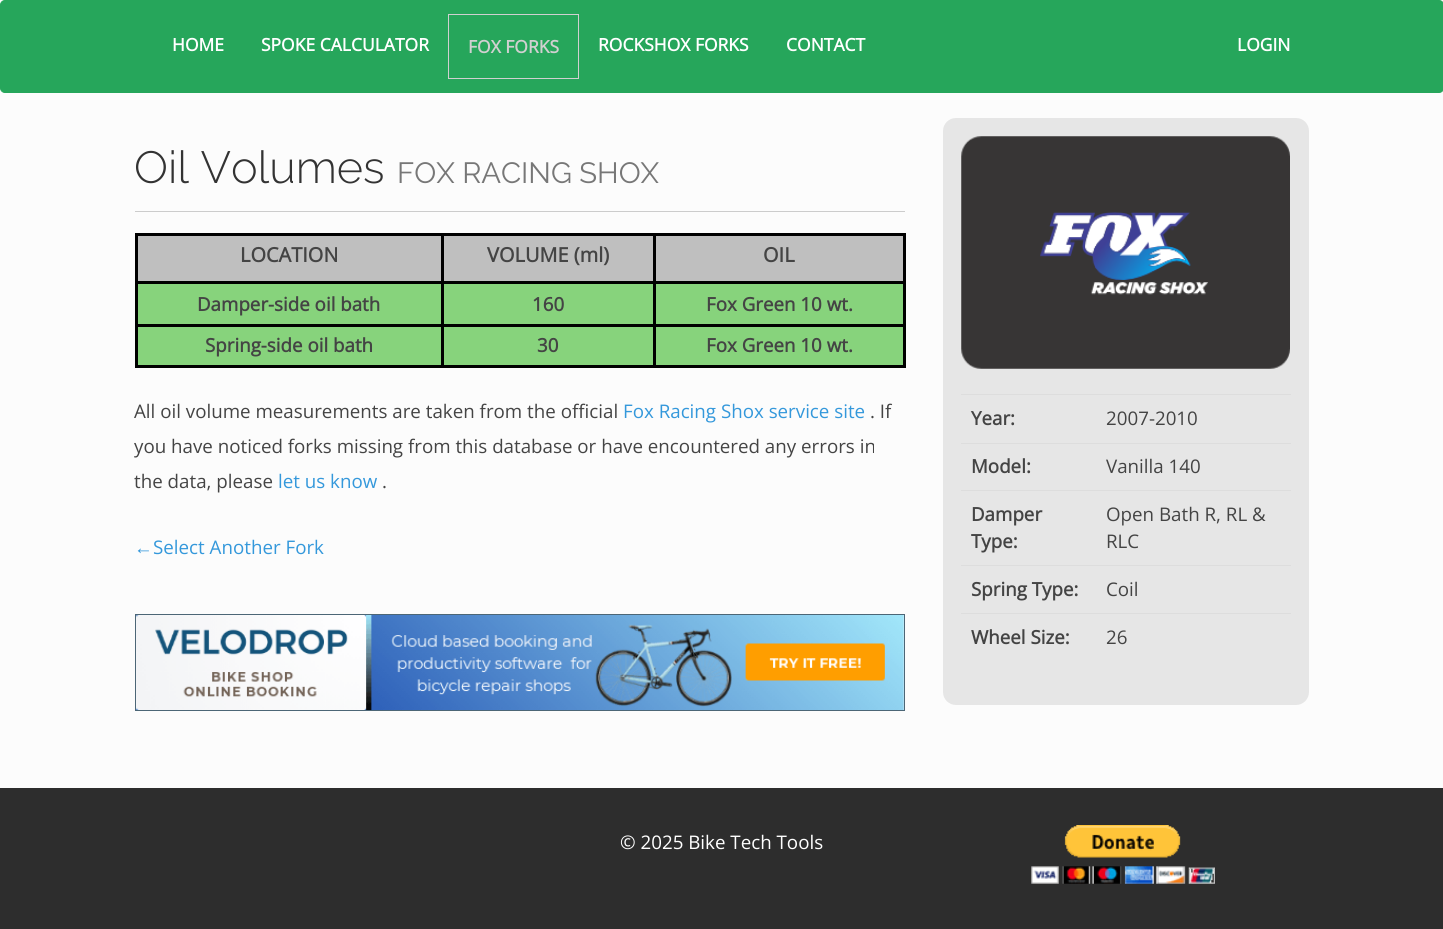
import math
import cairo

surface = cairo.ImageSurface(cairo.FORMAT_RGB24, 1443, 929)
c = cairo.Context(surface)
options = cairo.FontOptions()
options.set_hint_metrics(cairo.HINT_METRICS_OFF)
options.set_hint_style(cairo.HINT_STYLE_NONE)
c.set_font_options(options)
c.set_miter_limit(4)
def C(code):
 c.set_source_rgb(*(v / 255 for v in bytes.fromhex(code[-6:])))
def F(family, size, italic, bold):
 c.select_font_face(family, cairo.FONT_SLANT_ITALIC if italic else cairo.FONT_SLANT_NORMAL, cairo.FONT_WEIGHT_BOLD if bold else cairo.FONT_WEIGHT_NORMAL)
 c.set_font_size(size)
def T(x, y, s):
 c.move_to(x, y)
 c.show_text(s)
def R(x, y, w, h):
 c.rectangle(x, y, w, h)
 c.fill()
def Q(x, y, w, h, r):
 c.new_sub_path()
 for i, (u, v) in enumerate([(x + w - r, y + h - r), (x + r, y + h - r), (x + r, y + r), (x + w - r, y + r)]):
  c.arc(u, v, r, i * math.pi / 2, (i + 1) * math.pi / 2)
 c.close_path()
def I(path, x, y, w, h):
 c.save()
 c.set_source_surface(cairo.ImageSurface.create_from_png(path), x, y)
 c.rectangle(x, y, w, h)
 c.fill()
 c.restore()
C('fcfcfc')
c.paint()
C('26a65b')
Q(.5,.5,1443,92,4.5)
c.fill_preserve()
c.set_line_width(1)
c.stroke()
F('Open Sans',17.5,0,1)
C('ffffff')
T(172,51,'HOME')
T(261,51,'SPOKE CALCULATOR')
c.rectangle(448.5,14.5,130,64)
C('d0d0d0')
c.stroke()
T(468,53,'FOX FORKS')
C('ffffff')
T(598,51,'ROCKSHOX FORKS')
T(786,51,'CONTACT')
T(1237,51,'LOGIN')
F('Raleway Light',45,0,0)
C('333333')
T(134,183,'Oil Volumes')
F('Raleway',29.25,0,0)
C('777777')
T(397,183,'FOX RACING SHOX')
C('cccccc')
R(135,211,770,1)
C('bfbfbf')
R(138,236,303,45)
C('000000')
R(653,233,252,3)
R(653,281,252,3)
C('87d37c')
R(138,284,765,40)
C('000000')
R(653,324,252,3)
C('87d37c')
R(138,327,765,38)
C('000000')
R(903,324,3,44)
R(653,365,252,3)
R(653,324,3,44)
R(441,324,214,3)
R(653,281,3,45)
R(441,281,214,3)
R(653,233,3,51)
R(441,233,214,3)
R(441,365,214,3)
R(441,324,3,44)
R(135,324,309,3)
R(441,281,3,45)
R(135,281,309,3)
R(441,233,3,51)
R(135,233,309,3)
R(135,365,309,3)
R(135,324,3,44)
R(135,281,3,45)
R(135,233,3,51)
F('Open Sans',20,0,1)
C('444444')
T(240,262,'LOCATION')
C('bfbfbf')
R(444,236,209,45)
C('444444')
T(487,262,'VOLUME (ml)')
C('bfbfbf')
R(656,236,247,45)
C('000000')
R(903,281,3,45)
R(903,233,3,51)
C('444444')
T(763,262,'OIL')
F('Open Sans',18.75,0,1)
T(197,311,'Damper-side oil bath')
T(532,311,'160')
T(706,311,'Fox Green 10 wt.')
T(205,352,'Spring-side oil bath')
T(537,352,'30')
T(706,352,'Fox Green 10 wt.')
F('Open Sans',18.75,0,0)
T(134,418,'All oil volume measurements are taken from the official')
C('3498db')
T(623,418,'Fox Racing Shox service site')
C('444444')
T(870,418,'. If')
T(134,453,'you have noticed forks missing from this database or have encountered any errors in')
T(134,488,'the data, please')
C('3498db')
T(278,488,'let us know')
C('444444')
T(382,488,'.')
F('Liberation Sans',18.75,0,0)
C('3498db')
T(134,554,'←')
F('Open Sans',18.75,0,0)
T(153,554,'Select Another Fork')
c.rectangle(135.5,614.5,769,96)
C('4c6676')
c.stroke()
I('1.png',136,615,768,95)
C('e6e6e6')
Q(943,118,366,587,13)
c.fill()
I('2.png',961,136,329,233)
F('Open Sans',18.75,0,1)
C('444444')
T(971,425,'Year:')
C('dddddd')
R(961,394,330,1)
F('Open Sans',18.75,0,0)
C('444444')
T(1106,425,'2007-2010')
F('Open Sans',18.75,0,1)
T(971,473,'Model:')
C('dddddd')
R(961,443,330,1)
F('Open Sans',18.75,0,0)
C('444444')
T(1106,473,'Vanilla 140')
F('Open Sans',18.75,0,1)
T(971,521,'Damper')
T(971,548,'Type:')
C('dddddd')
R(961,490,330,1)
F('Open Sans',18.75,0,0)
C('444444')
T(1106,521,'Open Bath R, RL &')
T(1106,548,'RLC')
F('Open Sans',18.75,0,1)
T(971,596,'Spring Type:')
C('dddddd')
R(961,565,330,1)
F('Open Sans',18.75,0,0)
C('444444')
T(1106,596,'Coil')
F('Open Sans',18.75,0,1)
T(971,644,'Wheel Size:')
C('dddddd')
R(961,613,330,1)
F('Open Sans',18.75,0,0)
C('444444')
T(1106,644,'26')
C('2d2d2d')
R(0,788,1443,141)
C('ffffff')
T(620,849,'© 2025 Bike Tech Tools')
I('3.png',1031,825,184,59)
surface.write_to_png('o.png')
